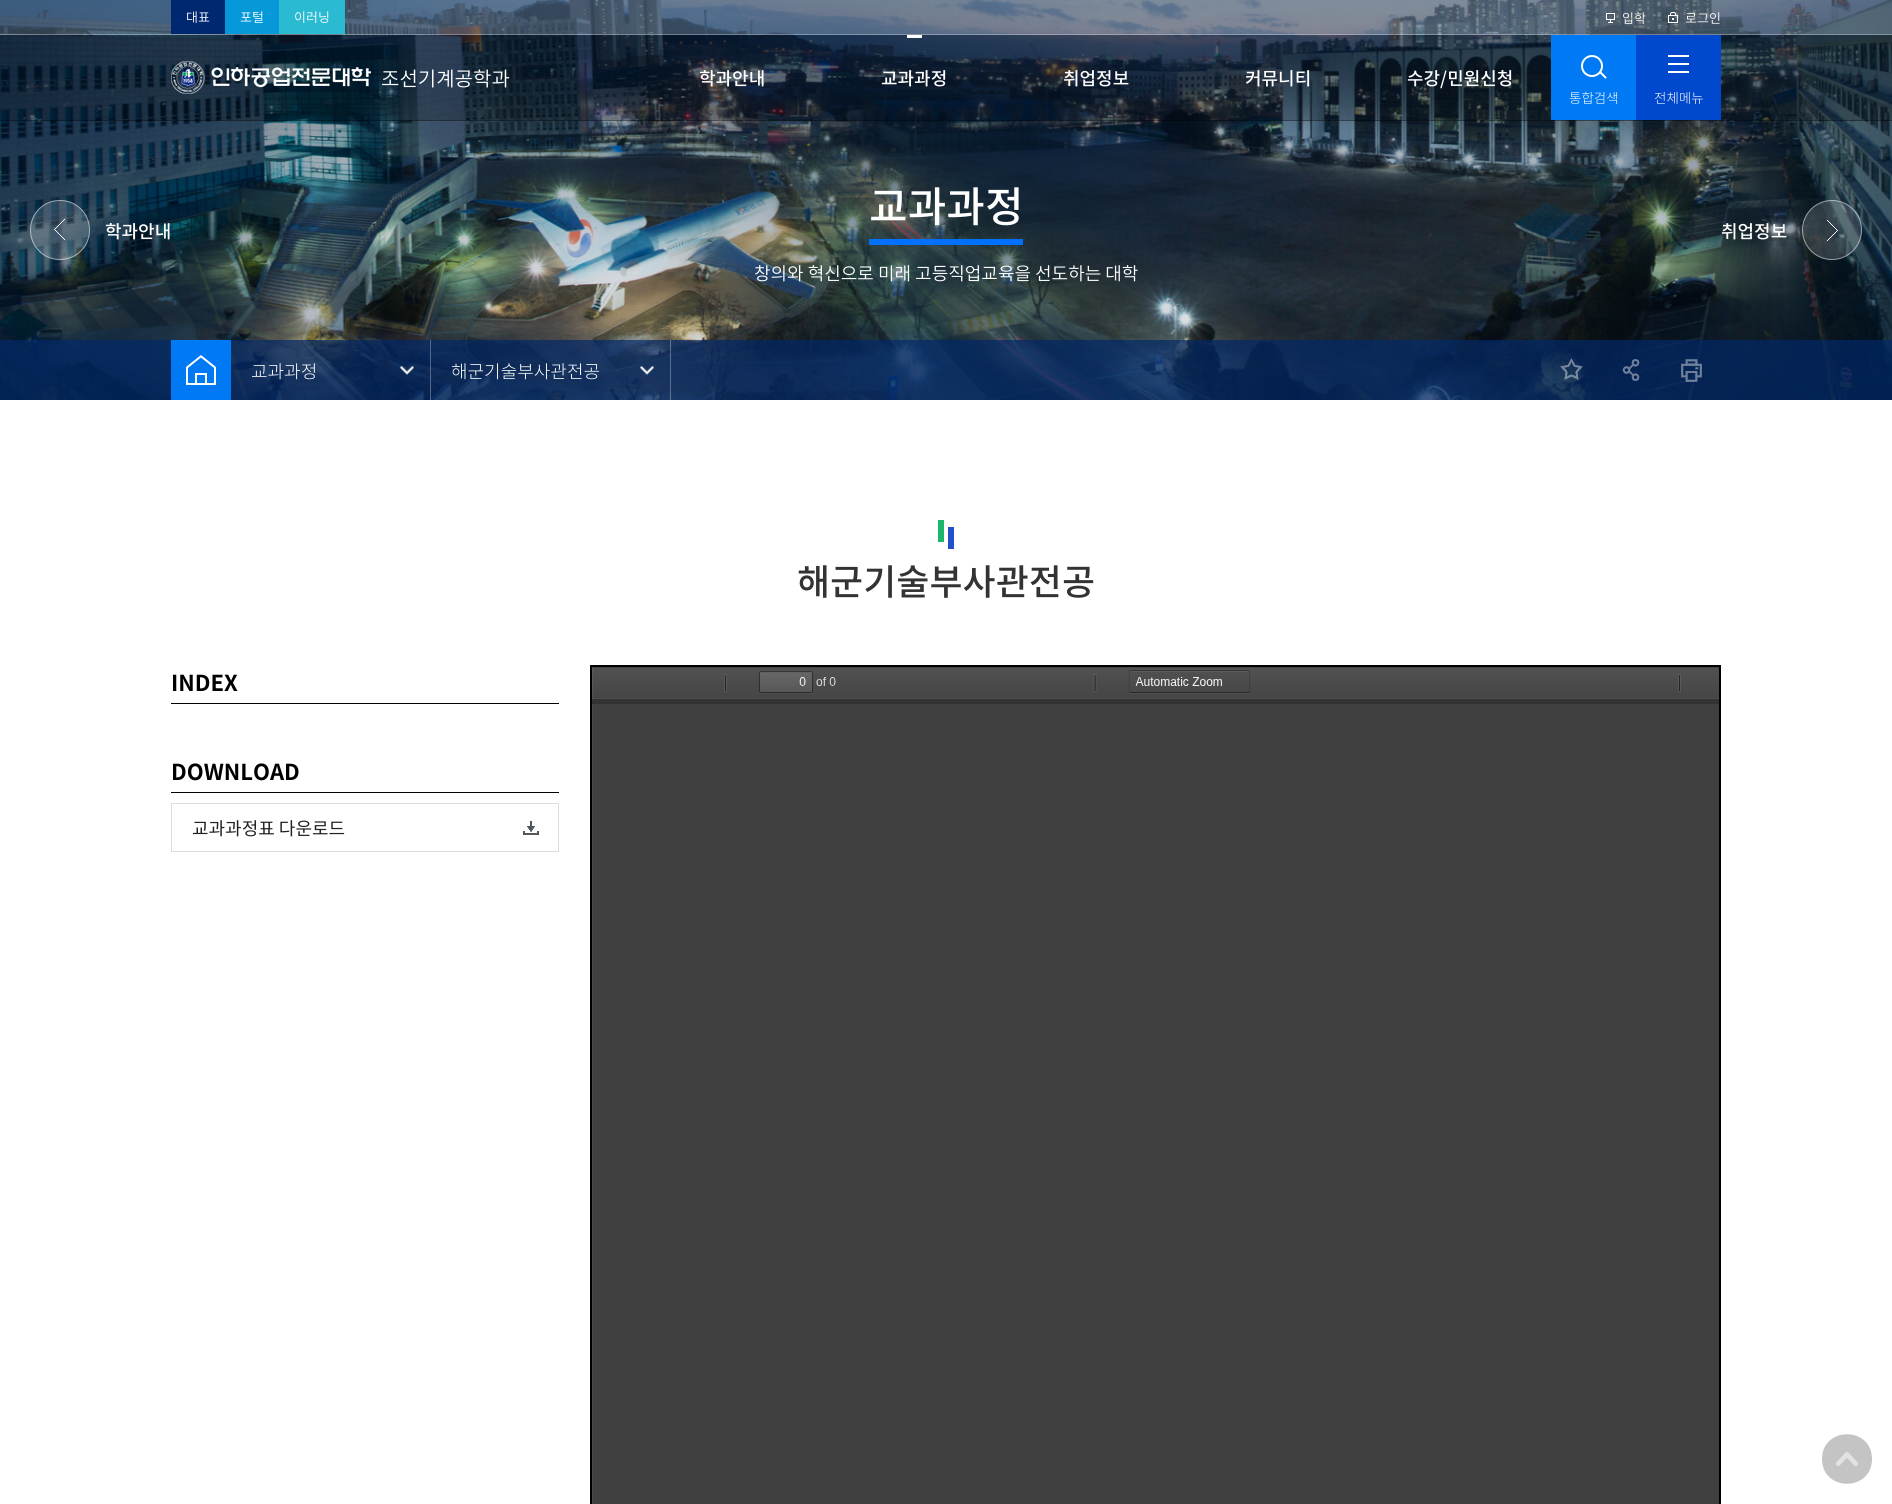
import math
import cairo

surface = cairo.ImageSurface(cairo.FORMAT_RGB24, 1892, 1504)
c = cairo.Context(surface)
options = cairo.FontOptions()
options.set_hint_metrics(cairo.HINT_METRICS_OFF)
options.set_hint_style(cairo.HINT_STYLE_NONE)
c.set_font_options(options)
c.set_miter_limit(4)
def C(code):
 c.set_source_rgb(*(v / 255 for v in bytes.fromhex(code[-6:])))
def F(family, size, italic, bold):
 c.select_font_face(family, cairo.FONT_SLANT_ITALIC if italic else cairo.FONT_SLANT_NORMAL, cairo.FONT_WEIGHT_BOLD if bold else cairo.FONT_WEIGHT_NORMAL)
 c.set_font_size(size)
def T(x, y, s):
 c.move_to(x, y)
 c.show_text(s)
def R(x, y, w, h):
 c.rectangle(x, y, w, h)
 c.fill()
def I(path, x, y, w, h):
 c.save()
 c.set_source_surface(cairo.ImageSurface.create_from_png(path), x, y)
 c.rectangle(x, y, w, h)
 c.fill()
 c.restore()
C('ffffff')
c.paint()
I('6.png',0,0,1892,400)
c.set_source_rgba(1,1,1,0.2)
R(0,0,1892,35)
c.set_source_rgba(1,1,1,0.3)
R(0,34,1892,1)
C('002870')
R(171,0,54,34)
F('Noto Sans KR Light',13,0,0)
C('ffffff')
T(186,22,'대표')
C('0599d9')
R(225,0,54,34)
C('ffffff')
T(240,22,'포털')
C('2abbd3')
R(279,0,66,34)
C('ffffff')
T(294,22,'이러닝')
I('1.png',1606,13,9,10)
T(1622,23,'입학')
I('2.png',1668,12,10,11)
T(1685,23,'로그인')
c.set_source_rgba(0,0,0,0.2)
R(0,35,1892,86)
c.set_source_rgba(0,0,0,0.3)
R(0,120,1892,1)
I('3.png',171,61,200,33)
F('Noto Sans KR Light',20,0,0)
C('ffffff')
T(381,86,'조선기계공학과')
F('Noto Sans KR Medium',18,0,0)
T(699,85,'학과안내')
R(907,35,15,3)
T(881,85,'교과과정')
T(1063,85,'취업정보')
T(1245,85,'커뮤니티')
T(1407,85,'수강/민원신청')
C('0079f4')
R(1551,35,85,85)
I('4.png',1581,55,26,24)
F('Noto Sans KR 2 Light',13.5,0,0)
C('ffffff')
T(1569,103,'통합검색')
C('0049cf')
R(1636,35,85,85)
I('5.png',1668,55,21,18)
C('ffffff')
T(1654,103,'전체메뉴')
c.set_source_rgba(1,1,1,0.15)
c.new_path()
c.move_to(60,260)
c.curve_to(43,260,30,247,30,230)
c.curve_to(30,213,43,200,60,200)
c.curve_to(77,200,90,213,90,230)
c.curve_to(90,247,77,260,60,260)
c.close_path()
c.fill()
I('7.png',54,218,11,22)
c.new_path()
c.move_to(60,259.5)
c.curve_to(43.5,259.5,30.5,246.5,30.5,230)
c.curve_to(30.5,213.5,43.5,200.5,60,200.5)
c.curve_to(76.5,200.5,89.5,213.5,89.5,230)
c.curve_to(89.5,246.5,76.5,259.5,60,259.5)
c.close_path()
c.set_source_rgba(1,1,1,0.5)
c.set_line_width(1)
c.stroke()
F('Noto Sans KR Medium',18,0,0)
C('ffffff')
T(105,238,'학과안내')
C('0170fa')
R(869,239,154,6)
F('Noto Sans KR Medium',42,0,0)
C('ffffff')
T(869,222,'교과과정')
F('Noto Sans KR Light',18,0,0)
T(754,280,'창의와 혁신으로 미래 고등직업교육을 선도하는 대학')
F('Noto Sans KR Medium',18,0,0)
T(1721,238,'취업정보')
c.set_source_rgba(1,1,1,0.15)
c.new_path()
c.arc(1832,230,30,0,2 * math.pi)
c.fill()
I('8.png',1827,220,11,21)
c.arc(1832,230,29.5,0,2 * math.pi)
c.set_source_rgba(1,1,1,0.5)
c.stroke()
c.set_source_rgba(0.008,0.161,0.408,0.7)
R(0,340,1892,60)
C('0079f4')
R(171,340,60,60)
I('9.png',186,355,30,30)
c.set_source_rgba(1,1,1,0.3)
R(430,340,1,60)
F('Noto Sans KR 2 Light',18,0,0)
C('ffffff')
T(251,378,'교과과정')
I('10.png',400,366,14,9)
c.set_source_rgba(1,1,1,0.3)
R(670,340,1,60)
C('ffffff')
T(451,378,'해군기술부사관전공')
I('11.png',640,366,14,9)
I('12.png',1560,358,23,22)
I('13.png',1622,359,18,22)
I('14.png',1681,359,21,23)
I('15.png',938,520,16,29)
F('Noto Sans KR Medium',36,0,0)
C('333333')
T(797,595,'해군기술부사관전공')
C('000000')
R(171,703,388,1)
F('Noto Sans KR',22,0,1)
T(171,691,'INDEX')
R(171,792,388,1)
T(171,780,'DOWNLOAD')
I('16.png',523,821,16,14)
c.rectangle(171.5,803.5,387,48)
C('dddddd')
c.stroke()
F('Noto Sans KR',18,0,0)
C('222222')
T(192,835,'교과과정표 다운로드')
c.rectangle(591,666,1129,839)
C('000000')
c.set_line_width(2)
c.stroke()
I('17.png',592,667,1127,837)
C('c4c4c4')
c.new_path()
c.move_to(1822,1459)
c.curve_to(1822,1426,1872,1426,1872,1459)
c.curve_to(1872,1492,1822,1492,1822,1459)
c.close_path()
c.fill()
I('18.png',1836,1452,22,14)
surface.write_to_png('o.png')
